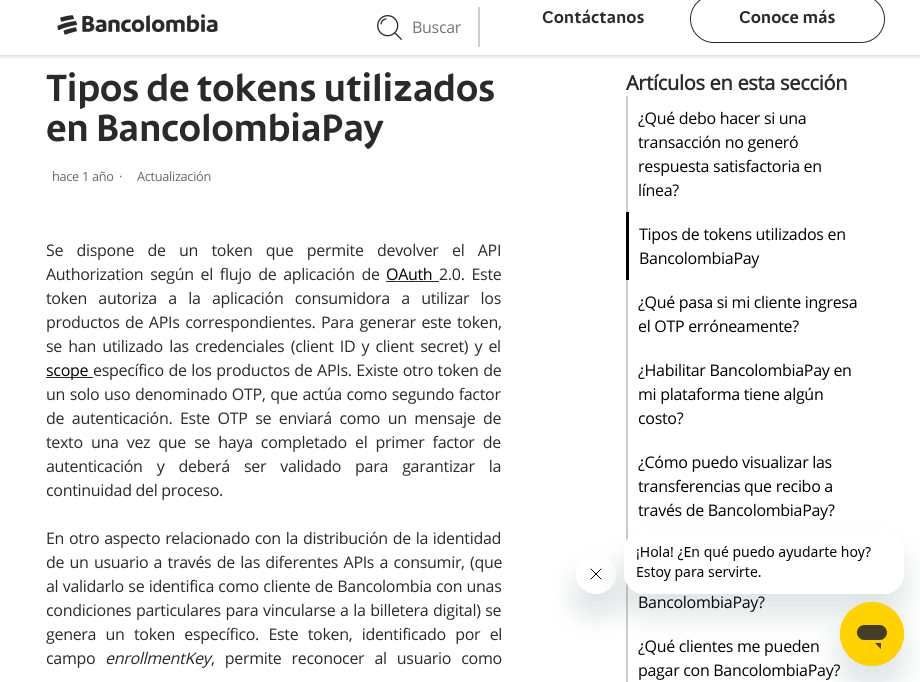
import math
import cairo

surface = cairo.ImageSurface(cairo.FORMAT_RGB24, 920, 682)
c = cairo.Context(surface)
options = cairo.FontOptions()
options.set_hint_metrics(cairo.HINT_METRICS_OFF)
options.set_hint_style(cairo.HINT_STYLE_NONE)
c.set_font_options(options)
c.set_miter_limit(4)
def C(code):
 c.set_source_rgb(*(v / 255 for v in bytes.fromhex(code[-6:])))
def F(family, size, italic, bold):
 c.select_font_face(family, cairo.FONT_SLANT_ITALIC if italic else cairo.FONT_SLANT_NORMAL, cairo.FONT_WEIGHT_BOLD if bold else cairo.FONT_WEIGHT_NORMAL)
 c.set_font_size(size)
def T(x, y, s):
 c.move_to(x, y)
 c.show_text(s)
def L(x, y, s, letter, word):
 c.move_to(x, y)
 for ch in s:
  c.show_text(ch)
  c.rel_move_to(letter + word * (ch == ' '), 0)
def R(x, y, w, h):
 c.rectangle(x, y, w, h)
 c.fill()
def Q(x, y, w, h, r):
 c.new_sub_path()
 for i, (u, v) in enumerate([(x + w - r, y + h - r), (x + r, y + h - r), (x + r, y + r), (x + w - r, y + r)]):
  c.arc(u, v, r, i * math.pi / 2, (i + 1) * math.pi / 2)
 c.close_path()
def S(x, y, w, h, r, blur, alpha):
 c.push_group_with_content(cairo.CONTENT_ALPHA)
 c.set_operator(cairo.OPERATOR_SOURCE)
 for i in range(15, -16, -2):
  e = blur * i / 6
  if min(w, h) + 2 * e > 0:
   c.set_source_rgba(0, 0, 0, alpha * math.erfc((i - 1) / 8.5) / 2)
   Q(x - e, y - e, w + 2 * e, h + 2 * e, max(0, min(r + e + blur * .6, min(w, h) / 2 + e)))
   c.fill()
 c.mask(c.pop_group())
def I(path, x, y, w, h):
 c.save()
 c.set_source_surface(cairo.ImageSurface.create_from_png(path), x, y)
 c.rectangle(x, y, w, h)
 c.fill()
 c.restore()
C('ffffff')
c.paint()
C('000000')
S(0,0,920,55,0,2.5,.1)
S(0,2,920,55,0,2,.1)
C('ffffff')
R(0,0,920,55)
I('1.png',57,14,161,21)
C('cccccc')
R(478,7,2,40)
F('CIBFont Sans',18,0,1)
C('2c2a29')
T(542,23,'Contáctanos')
Q(690.5,-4.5,194,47,23.5)
c.set_line_width(1)
c.stroke()
T(739,23,'Conoce más')
I('2.png',377,15,25,25)
F('Open Sans',16,0,0)
C('757575')
L(412,33,'Buscar',-.3,0)
F('CIBFont Sans',40,0,1)
C('2c2a29')
L(46,101,'Tipos de tokens utilizados',-.6,0)
L(46,141,'en BancolombiaPay',-.6,0)
F('Open Sans',12.75,0,0)
C('666666')
L(52,181,'hace 1 año',-.3,0)
L(119,181,'·',-.3,0)
L(137,181,'Actualización',-.3,0)
F('Open Sans',16,0,0)
C('2c2a29')
L(46,256,'Se dispone de un token que permite devolver el API',-.3,9.5)
L(46,280,'Authorization según el flujo de aplicación de',-.3,3)
C('000000')
L(386,280,'OAuth',-.3,0)
C('2c2a29')
R(386,281,53,1)
L(439,280,'2.0. Este',-.3,3)
L(46,304,'token autoriza a la aplicación consumidora a utilizar los',-.3,7.5)
L(46,328,'productos de APIs correspondientes. Para generar este token,',-.3,1.75)
L(46,352,'se han utilizado las credenciales (client ID y client secret) y el',-.3,2.4)
R(46,377,47,1)
C('000000')
L(46,376,'scope',-.3,0)
C('2c2a29')
L(93,376,'específico de los productos de APIs. Existe otro token de',-.3,.75)
L(46,400,'un solo uso denominado OTP, que actúa como segundo factor',-.3,.75)
L(46,424,'de autenticación. Este OTP se enviará como un mensaje de',-.3,3.75)
L(46,448,'texto una vez que se haya completado el primer factor de',-.3,4.25)
L(46,472,'autenticación y deberá ser validado para garantizar la',-.3,10.25)
L(46,496,'continuidad del proceso.',-.3,0)
L(46,544,'En otro aspecto relacionado con la distribución de la identidad',-.3,1)
L(46,568,'de un usuario a través de las diferentes APIs a consumir, (que',-.3,1.5)
L(46,592,'al validarlo se identifica como cliente de Bancolombia con unas',-.3,.5)
L(46,616,'condiciones particulares para vincularse a la billetera digital) se',-.3,.75)
L(46,640,'genera un token específico. Este token, identificado por el',-.3,5.5)
L(46,664,'campo',-.3,0)
F('Open Sans',16,1,0)
L(105,664,'enrollmentKey',-.3,0)
F('Open Sans',16,0,0)
L(211,664,', permite reconocer al usuario como',-.3,6.25)
F('Open Sans',20,0,1)
L(626,90,'Artículos en esta sección',-.3,0)
C('cccccc')
R(626,96,2,116)
F('Open Sans',16,0,0)
C('000000')
L(638,124,'¿Qué debo hacer si una',-.3,0)
L(638,148,'transacción no generó',-.3,0)
L(638,172,'respuesta satisfactoria en',-.3,0)
L(638,196,'línea?',-.3,0)
R(626,212,3,68)
L(639,240,'Tipos de tokens utilizados en',-.3,0)
L(639,264,'BancolombiaPay',-.3,0)
C('cccccc')
R(626,280,2,402)
C('000000')
L(638,308,'¿Qué pasa si mi cliente ingresa',-.3,0)
L(638,332,'el OTP erróneamente?',-.3,0)
L(638,376,'¿Habilitar BancolombiaPay en',-.3,0)
L(638,400,'mi plataforma tiene algún',-.3,0)
L(638,424,'costo?',-.3,0)
L(638,468,'¿Cómo puedo visualizar las',-.3,0)
L(638,492,'transferencias que recibo a',-.3,0)
L(638,516,'través de BancolombiaPay?',-.3,0)
L(638,608,'BancolombiaPay?',-.3,0)
L(638,652,'¿Qué clientes me pueden',-.3,0)
L(638,676,'pagar con BancolombiaPay?',-.3,0)
c.save()
c.set_fill_rule(cairo.FILL_RULE_EVEN_ODD)
c.new_path()
c.move_to(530,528)
c.line_to(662,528)
c.line_to(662,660)
c.line_to(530,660)
c.close_path()
c.move_to(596,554)
c.curve_to(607,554,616,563,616,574)
c.curve_to(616,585,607,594,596,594)
c.curve_to(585,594,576,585,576,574)
c.curve_to(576,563,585,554,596,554)
c.close_path()
c.clip()
C('17494d')
S(576,574,40,40,20,15,.15)
c.restore()
I('4.png',590,568,12,12)
c.save()
c.set_fill_rule(cairo.FILL_RULE_EVEN_ODD)
c.new_path()
c.move_to(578,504)
c.line_to(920,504)
c.line_to(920,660)
c.line_to(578,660)
c.close_path()
c.move_to(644,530)
c.line_to(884,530)
c.curve_to(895,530,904,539,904,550)
c.line_to(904,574)
c.curve_to(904,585,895,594,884,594)
c.line_to(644,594)
c.curve_to(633,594,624,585,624,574)
c.line_to(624,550)
c.curve_to(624,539,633,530,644,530)
c.close_path()
c.clip()
C('17494d')
S(624,550,280,64,20,15,.15)
c.restore()
I('3.png',625,538,273,56)
C('17494d')
S(840,622,64,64,32,15,.15)
I('5.png',840,602,64,64)
surface.write_to_png('o.png')
